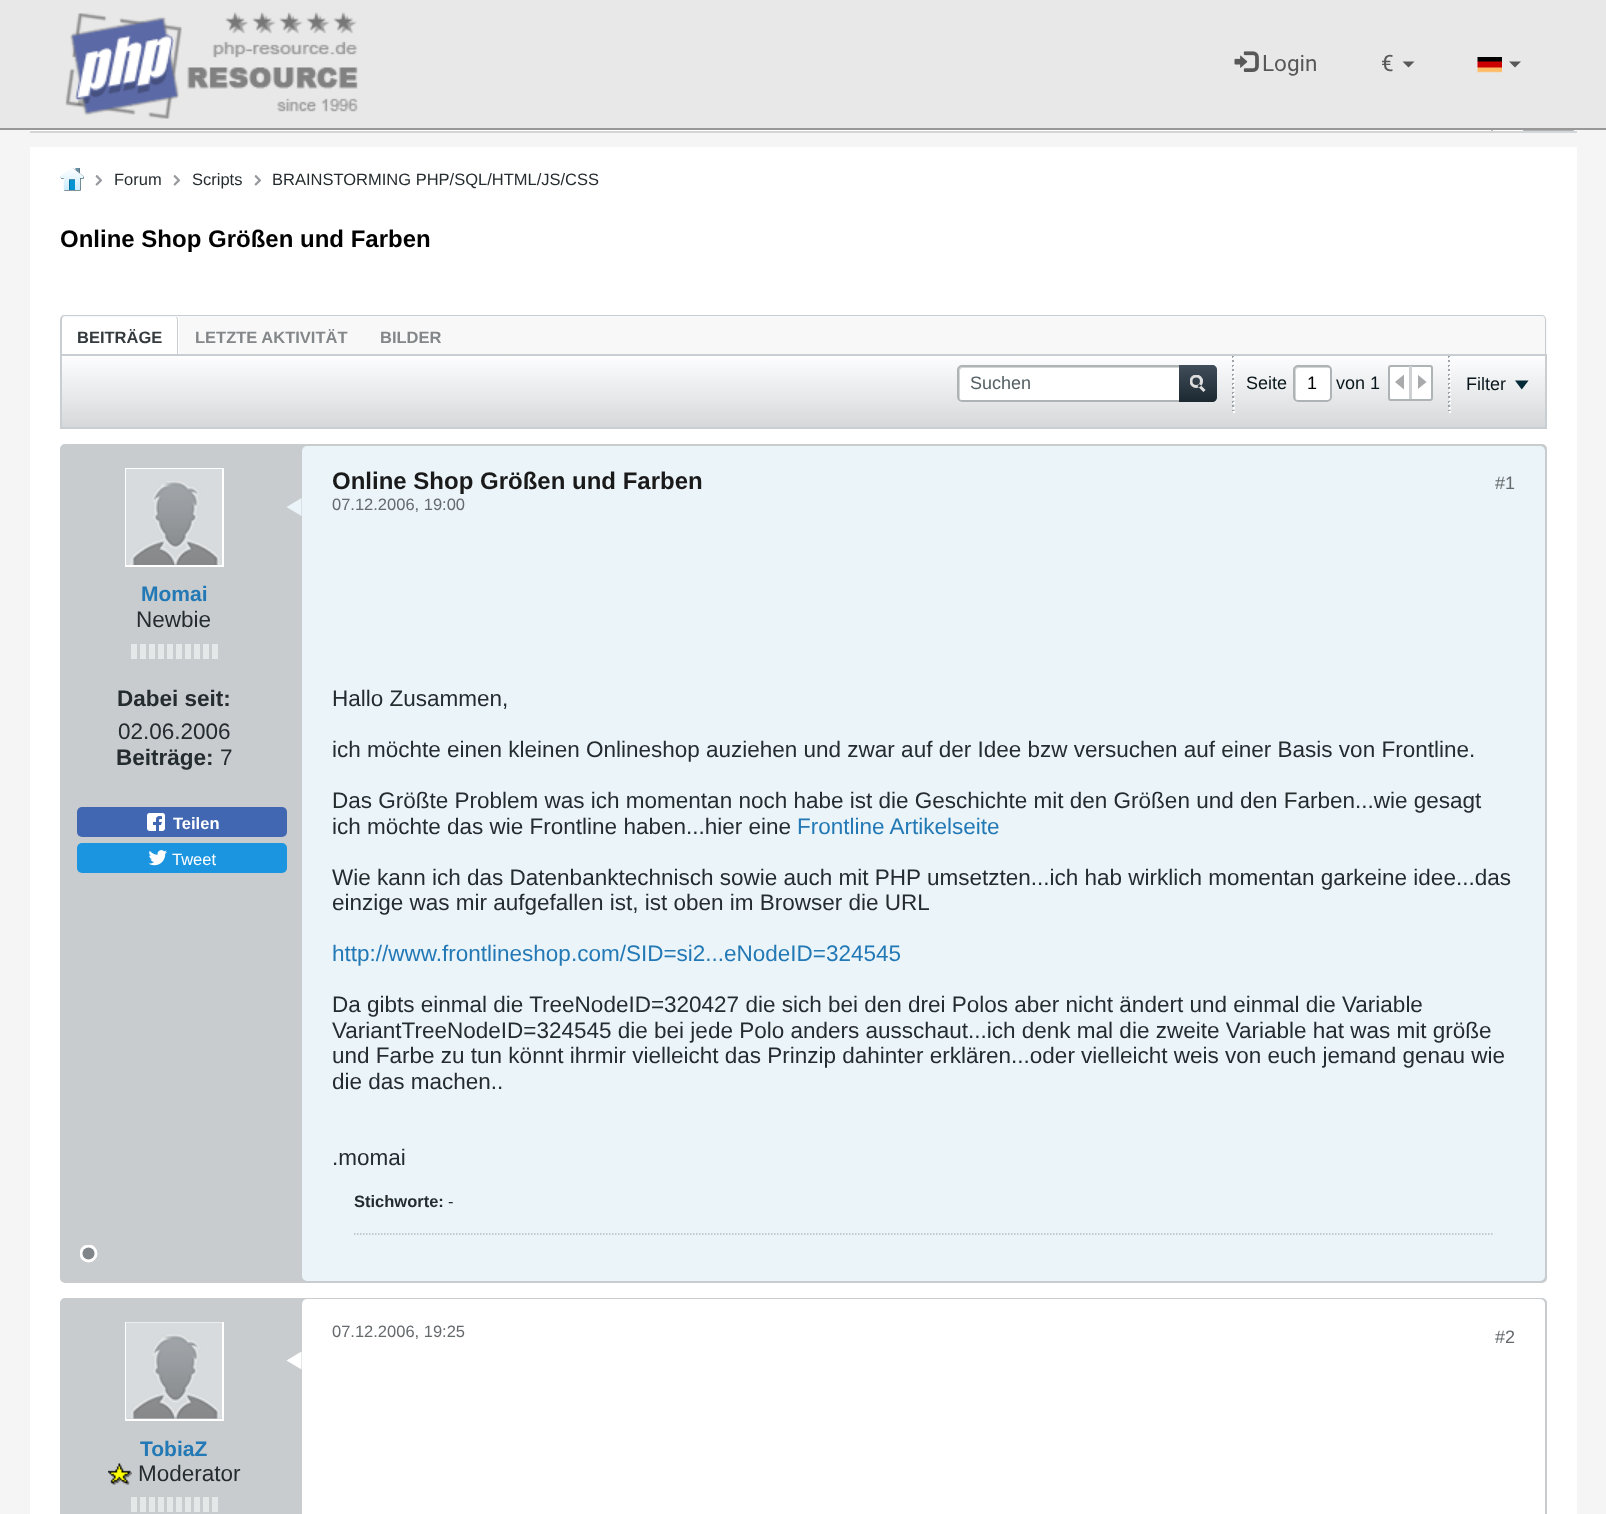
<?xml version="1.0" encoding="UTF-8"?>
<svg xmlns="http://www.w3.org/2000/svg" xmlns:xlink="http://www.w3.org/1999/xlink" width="1606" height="1514">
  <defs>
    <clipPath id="clip1"><path d="M 65 317 h 1477 c 1.5 0 3 1.5 3 3 v 36 h -1483 v -36 c 0 -1.5 1.5 -3 3 -3 z" /></clipPath>
    <linearGradient id="g1" gradientUnits="userSpaceOnUse" x1="803" y1="355" x2="803" y2="428"><stop offset="0" stop-color="#fefeff" /><stop offset="1" stop-color="#d5d8da" /></linearGradient>
    <linearGradient id="g2" gradientUnits="userSpaceOnUse" x1="1198" y1="365" x2="1198" y2="402"><stop offset="0" stop-color="#404d5a" /><stop offset="1" stop-color="#1c2931" /></linearGradient>
  </defs>
  <rect width="100%" height="100%" fill="#f5f5f5" />
  <rect x="30" y="130" width="1547" height="1" fill="#ffffff" />
  <path d="M 1524 88 h 48 c 2 0 4 2 4 4 v 34 c 0 2 -2 4 -4 4 h -48 z" fill="none" stroke="#aeb3b6" stroke-width="2" />
  <rect width="1606" height="128" fill="#e8e8e8" />
  <rect y="128" width="1606" height="2" fill="#989898" />
  <image x="65" y="12" width="293" height="107" xlink:href="image1.png" />
  <image x="1234" y="51" width="25" height="21" xlink:href="image2.png" />
  <path d="M 1402.5 61.5 h 12 l -6 6 z" fill="#585858" />
  <image x="1477" y="57" width="25" height="16" xlink:href="image3.png" />
  <path d="M 1509 61.5 h 12 l -6 6 z" fill="#585858" />
  <rect x="30" y="131" width="1547" height="2" fill="#d3d5d6" />
  <rect x="1491" y="130" width="2" height="1" fill="#bdbdbd" />
  <rect x="30" y="147" width="1547" height="1367" fill="#ffffff" />
  <image x="60" y="168" width="24" height="23" xlink:href="image4.png" />
  <image x="95" y="175" width="7" height="11" xlink:href="image5.png" />
  <image x="173" y="175" width="7" height="11" xlink:href="image5.png" />
  <image x="254" y="175" width="7" height="11" xlink:href="image6.png" />
  <path d="M 65 315 h 1477 c 3 0 5 2 5 5 v 36 h -1487 v -36 c 0 -3 2 -5 5 -5 z" fill="#f8f8f8" />
  <path d="M 64 315 h 1478 c 2 0 4 2 4 5 v 36 h -1486 v -36 c 0 -3 2 -5 4 -5 z m 0 1 h 1478 c 2 0 3 2 3 4 v 36 h -1483 v -36 c 0 -2 1 -4 2 -4 z" fill="#c9ced2" fill-rule="evenodd" />
  <g clip-path="url(#clip1)">
    <path d="M 65 315 h 109 c 3 0 5 2 5 5 v 36 h -119 v -36 c 0 -3 2 -5 5 -5 z" fill="#ffffff" />
  </g>
  <path d="M 177 356 h 1 v -36 c 0 -1 -0.5 -2 -1 -3 h -1 c 0.5 1 1 2 1 3 z" fill="#c9ced2" />
  <rect x="62" y="358" width="1483" height="69" fill="url(#g1)" />
  <rect x="61" y="355" width="1485" height="73" fill="none" stroke="#c9ced2" stroke-width="2" />
  <rect x="957" y="365" width="260" height="37" rx="5" fill="#ffffff" />
  <path d="M 963 368 h 252 c 0 -1 -2 -2 -3 -2 h -250 c -2 0 -3 1 -3 3 v 29 c 0 1 0 2 1 2 v -25 c 0 -3 -1 -7 3 -7 z" fill="#d5d5d5" />
  <rect x="958" y="366" width="258" height="35" rx="4" fill="none" stroke="#aeb3b6" stroke-width="2" />
  <path d="M 1179 365 h 33 c 3 0 5 2 5 5 v 27 c 0 3 -2 5 -5 5 h -33 z" fill="url(#g2)" />
  <image x="1190" y="375" width="16" height="17" xlink:href="image7.png" />
  <image x="1232" y="356" width="2" height="55" xlink:href="image8.png" />
  <image x="1233" y="357" width="2" height="56" xlink:href="image9.png" />
  <rect x="1293" y="365" width="39" height="37" rx="5" fill="#ffffff" />
  <path d="M 1299 368 h 30 l 2 0.5 c -0.5 -1.5 -1.5 -2.5 -3 -2.5 h -30 c -1.5 0 -3 1.5 -3 3 v 29 c 0 1 0.5 2 1 2.5 v -25.5 c 0 -3.5 -1 -7 3 -7 z" fill="#d5d5d5" />
  <rect x="1294" y="366" width="37" height="35" rx="4" fill="none" stroke="#aeb3b6" stroke-width="2" />
  <rect x="1389" y="366" width="43" height="34" rx="2" fill="#ffffff" stroke="#aeb3b6" stroke-width="2" />
  <rect x="1409" y="366" width="3" height="33" fill="#cdd1d4" />
  <image x="1395" y="375" width="9" height="15" xlink:href="image10.png" />
  <image x="1418" y="375" width="9" height="14" xlink:href="image11.png" />
  <image x="1448" y="356" width="2" height="55" xlink:href="image8.png" />
  <image x="1449" y="357" width="2" height="56" xlink:href="image9.png" />
  <image x="1515" y="380" width="14" height="10" xlink:href="image12.png" />
  <rect x="61" y="445" width="1485" height="837" rx="4" fill="#c8ccce" stroke="#c8ccce" stroke-width="2" />
  <rect x="126" y="469" width="97" height="97" fill="none" stroke="#ffffff" stroke-width="2" />
  <image x="126" y="469" width="96" height="96" xlink:href="image13.png" />
  <rect x="131" y="644" width="6" height="15" fill="#e5e8e9" />
  <rect x="140" y="644" width="6" height="15" fill="#e5e8e9" />
  <rect x="149" y="644" width="6" height="15" fill="#e5e8e9" />
  <rect x="158" y="644" width="6" height="15" fill="#e5e8e9" />
  <rect x="167" y="644" width="6" height="15" fill="#e5e8e9" />
  <rect x="176" y="644" width="6" height="15" fill="#e5e8e9" />
  <rect x="185" y="644" width="6" height="15" fill="#e5e8e9" />
  <rect x="194" y="644" width="6" height="15" fill="#e5e8e9" />
  <rect x="203" y="644" width="6" height="15" fill="#e5e8e9" />
  <rect x="212" y="644" width="6" height="15" fill="#e5e8e9" />
  <image x="80" y="1245" width="18" height="18" xlink:href="image14.png" />
  <rect x="77" y="807" width="210" height="30" rx="5" fill="#4267b2" />
  <image x="147" y="813" width="18" height="18" xlink:href="image15.png" />
  <rect x="77" y="843" width="210" height="30" rx="5" fill="#1b95e0" />
  <image x="148" y="850" width="19" height="16" xlink:href="image16.png" />
  <rect x="302" y="446" width="1243" height="835" rx="5" fill="#ebf4f9" />
  <path d="M 301.5 498 v 18 l -15 -9 z" fill="#ebf4f9" />
  <path d="M 354 1234 h 1138.5" fill="none" stroke="#b7bcbe" stroke-width="1.5" stroke-dasharray="1.5 1.5" />
  <rect x="61" y="1299" width="1485" height="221" rx="4" fill="#c8ccce" stroke="#c8ccce" stroke-width="2" />
  <rect x="302" y="1299" width="1243" height="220" rx="5" fill="#ffffff" />
  <path d="M 301.5 1351.5 v 18 l -15 -9 z" fill="#ffffff" />
  <rect x="126" y="1323" width="97" height="97" fill="none" stroke="#ffffff" stroke-width="2" />
  <image x="126" y="1322" width="96" height="97" xlink:href="image17.png" />
  <image x="108" y="1463" width="24" height="22" xlink:href="image18.png" />
  <rect x="131" y="1497" width="6" height="15" fill="#e5e8e9" />
  <rect x="140" y="1497" width="6" height="15" fill="#e5e8e9" />
  <rect x="149" y="1497" width="6" height="15" fill="#e5e8e9" />
  <rect x="158" y="1497" width="6" height="15" fill="#e5e8e9" />
  <rect x="167" y="1497" width="6" height="15" fill="#e5e8e9" />
  <rect x="176" y="1497" width="6" height="15" fill="#e5e8e9" />
  <rect x="185" y="1497" width="6" height="15" fill="#e5e8e9" />
  <rect x="194" y="1497" width="6" height="15" fill="#e5e8e9" />
  <rect x="203" y="1497" width="6" height="15" fill="#e5e8e9" />
  <rect x="212" y="1497" width="6" height="15" fill="#e5e8e9" />
  <text x="1262" y="71" style="font-family: Roboto; font-size: 22.5px; fill: #585858">Login</text>
  <text x="1381" y="71" style="font-family: Roboto; font-size: 22.5px; fill: #585858">€</text>
  <text x="114" y="185" style="font-family: Liberation Sans; font-size: 16.5px; fill: #252c2f">Forum</text>
  <text x="192" y="185" style="font-family: Liberation Sans; font-size: 16.5px; fill: #252c2f">Scripts</text>
  <text x="272" y="185" style="font-family: Liberation Sans; font-size: 16.5px; fill: #252c2f">BRAINSTORMING PHP/SQL/HTML/JS/CSS</text>
  <text x="60" y="247" style="font-family: Liberation Sans; font-size: 24px; font-weight: bold; fill: #000000">Online Shop Größen und Farben</text>
  <text x="77" y="343" style="font-family: Liberation Sans; font-size: 16.5px; font-weight: bold; fill: #343a3d">BEITRÄGE</text>
  <text x="195" y="343" style="font-family: Liberation Sans; font-size: 16.5px; font-weight: bold; fill: #838789">LETZTE AKTIVITÄT</text>
  <text x="380" y="343" style="font-family: Liberation Sans; font-size: 16.5px; font-weight: bold; fill: #838789">BILDER</text>
  <text x="970" y="389" style="font-family: Liberation Sans; font-size: 18px; fill: #556065">Suchen</text>
  <text x="1246" y="389" style="font-family: Liberation Sans; font-size: 18px; fill: #09161b">Seite</text>
  <text x="1307" y="389" style="font-family: Liberation Sans; font-size: 18px; fill: #000000">1</text>
  <text x="1336" y="389" style="font-family: Liberation Sans; font-size: 18px; fill: #09161b">von 1</text>
  <text x="1466" y="390" style="font-family: Liberation Sans; font-size: 18px; fill: #09161b">Filter</text>
  <text x="141" y="601" style="font-family: Liberation Sans; font-size: 21px; font-weight: bold; fill: #2379b5">Momai</text>
  <text x="136" y="627" style="font-family: Liberation Sans; font-size: 22.5px; fill: #252c2f">Newbie</text>
  <text x="117" y="706" style="font-family: Liberation Sans; font-size: 22.5px; font-weight: bold; fill: #252c2f">Dabei seit:</text>
  <text x="118" y="739" style="font-family: Liberation Sans; font-size: 22.5px; fill: #252c2f">02.06.2006</text>
  <text x="116" y="765" style="font-family: Liberation Sans; font-size: 22.5px; font-weight: bold; fill: #252c2f">Beiträge:</text>
  <text x="220" y="765" style="font-family: Liberation Sans; font-size: 22.5px; fill: #252c2f">7</text>
  <text x="173" y="829" style="font-family: Liberation Sans; font-size: 16.5px; font-weight: bold; fill: #ffffff">Teilen</text>
  <text x="172" y="865" style="font-family: Liberation Sans; font-size: 16.5px; fill: #ffffff">Tweet</text>
  <text x="332" y="489" style="font-family: Liberation Sans; font-size: 24px; font-weight: bold; fill: #1a1a1a">Online Shop Größen und Farben</text>
  <text x="332" y="510" style="font-family: Liberation Sans; font-size: 16.5px; fill: #656a6d">07.12.2006, 19:00</text>
  <text x="1495" y="489" style="font-family: Liberation Sans; font-size: 18px; fill: #656a6d">#1</text>
  <text x="332" y="706" style="font-family: Liberation Sans; font-size: 22.5px; fill: #252c2f">Hallo Zusammen,</text>
  <text x="332" y="757" style="font-family: Liberation Sans; font-size: 22.5px; fill: #252c2f">ich möchte einen kleinen Onlineshop auziehen und zwar auf der Idee bzw versuchen auf einer Basis von Frontline.</text>
  <text x="332" y="808" style="font-family: Liberation Sans; font-size: 22.5px; fill: #252c2f">Das Größte Problem was ich momentan noch habe ist die Geschichte mit den Größen und den Farben...wie gesagt</text>
  <text x="332" y="834" style="font-family: Liberation Sans; font-size: 22.5px; fill: #252c2f">ich möchte das wie Frontline haben...hier eine</text>
  <text x="797" y="834" style="font-family: Liberation Sans; font-size: 22.5px; fill: #2379b5">Frontline Artikelseite</text>
  <text x="332" y="885" style="font-family: Liberation Sans; font-size: 22.5px; fill: #252c2f">Wie kann ich das Datenbanktechnisch sowie auch mit PHP umsetzten...ich hab wirklich momentan garkeine idee...das</text>
  <text x="332" y="910" style="font-family: Liberation Sans; font-size: 22.5px; fill: #252c2f">einzige was mir aufgefallen ist, ist oben im Browser die URL</text>
  <text x="332" y="961" style="font-family: Liberation Sans; font-size: 22.5px; fill: #2379b5">http://www.frontlineshop.com/SID=si2...eNodeID=324545</text>
  <text x="332" y="1012" style="font-family: Liberation Sans; font-size: 22.5px; fill: #252c2f">Da gibts einmal die TreeNodeID=320427 die sich bei den drei Polos aber nicht ändert und einmal die Variable</text>
  <text x="332" y="1038" style="font-family: Liberation Sans; font-size: 22.5px; fill: #252c2f">VariantTreeNodeID=324545 die bei jede Polo anders ausschaut...ich denk mal die zweite Variable hat was mit größe</text>
  <text x="332" y="1063" style="font-family: Liberation Sans; font-size: 22.5px; fill: #252c2f">und Farbe zu tun könnt ihrmir vielleicht das Prinzip dahinter erklären...oder vielleicht weis von euch jemand genau wie</text>
  <text x="332" y="1089" style="font-family: Liberation Sans; font-size: 22.5px; fill: #252c2f">die das machen..</text>
  <text x="332" y="1165" style="font-family: Liberation Sans; font-size: 22.5px; fill: #252c2f">.momai</text>
  <text x="354" y="1207" style="font-family: Liberation Sans; font-size: 16.5px; font-weight: bold; fill: #252c2f">Stichworte:</text>
  <text x="448" y="1207" style="font-family: Liberation Sans; font-size: 16.5px; fill: #252c2f">-</text>
  <text x="332" y="1337" style="font-family: Liberation Sans; font-size: 16.5px; fill: #656a6d">07.12.2006, 19:25</text>
  <text x="1495" y="1343" style="font-family: Liberation Sans; font-size: 18px; fill: #656a6d">#2</text>
  <text x="140" y="1456" style="font-family: Liberation Sans; font-size: 21px; font-weight: bold; fill: #2379b5">TobiaZ</text>
  <text x="138" y="1481" style="font-family: Liberation Sans; font-size: 22.5px; fill: #252c2f">Moderator</text>
</svg>
